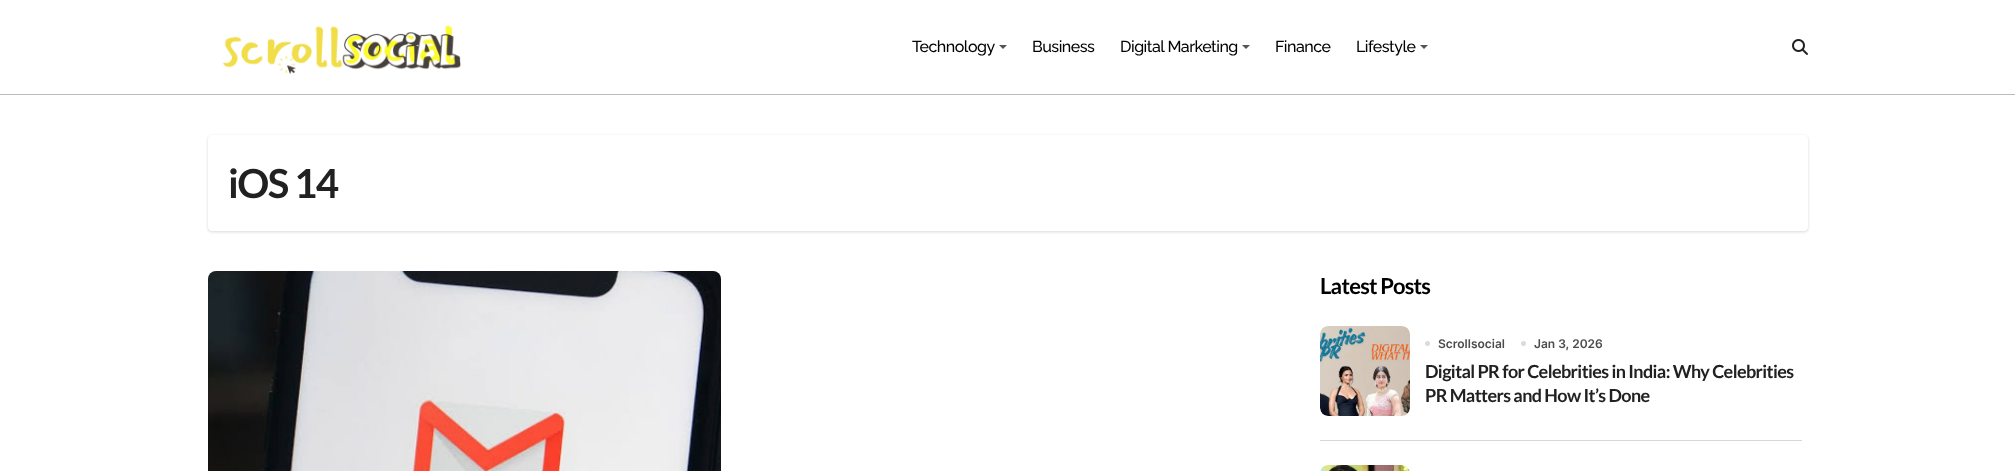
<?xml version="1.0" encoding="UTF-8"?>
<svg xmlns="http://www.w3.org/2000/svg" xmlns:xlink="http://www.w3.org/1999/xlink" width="2015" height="471">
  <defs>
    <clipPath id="clip1"><path d="M 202 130 h 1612 v 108 h -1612 z m 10 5 h 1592 c 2 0 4 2 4 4 v 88 c 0 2 -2 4 -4 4 h -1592 c -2 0 -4 -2 -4 -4 v -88 c 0 -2 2 -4 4 -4 z" clip-rule="evenodd" /></clipPath>
  </defs>
  <rect width="100%" height="100%" fill="#ffffff" />
  <rect y="94" width="2015" height="1" fill="#bbbbbb" />
  <image x="222" y="25" width="239" height="49" xlink:href="image1.png" />
  <path d="M 999 45 h 8 l -4 4 z" fill="#555555" />
  <path d="M 1242 45 h 8 l -4 4 z" fill="#555555" />
  <path d="M 1420 45 h 8 l -4 4 z" fill="#555555" />
  <image x="1792" y="39" width="16" height="16" xlink:href="image2.png" />
  <g clip-path="url(#clip1)">
    <rect x="208" y="136" width="1600" height="96" rx="4" fill="#000000" fill-opacity="0.15" filter="blur(1.5px)" />
  </g>
  <image x="208" y="271" width="513" height="200" xlink:href="image3.png" />
  <rect x="1320" y="440" width="482" height="1" fill="#d7d7d7" />
  <image x="1320" y="326" width="90" height="90" xlink:href="image4.png" />
  <circle cx="1427.5" cy="343.5" r="2.5" fill="#dbdbdb" />
  <circle cx="1523.5" cy="343.5" r="2.5" fill="#dbdbdb" />
  <image x="1320" y="465" width="90" height="6" xlink:href="image5.png" />
  <text x="912" y="52" style="font-family: Raleway; font-size: 16px; font-weight: 500; letter-spacing: -0.5px; fill: #000000">Technology</text>
  <text x="1032" y="52" style="font-family: Raleway; font-size: 16px; font-weight: 500; letter-spacing: -0.5px; fill: #000000">Business</text>
  <text x="1120" y="52" style="font-family: Raleway; font-size: 16px; font-weight: 500; letter-spacing: -0.5px; fill: #000000">Digital Marketing</text>
  <text x="1275" y="52" style="font-family: Raleway; font-size: 16px; font-weight: 500; letter-spacing: -0.5px; fill: #000000">Finance</text>
  <text x="1356" y="52" style="font-family: Raleway; font-size: 16px; font-weight: 500; letter-spacing: -0.5px; fill: #000000">Lifestyle</text>
  <text x="228" y="198" style="font-family: Lato; font-size: 40px; font-weight: bold; letter-spacing: -1.5px; fill: #212121">iOS 14</text>
  <text x="1320" y="294" style="font-family: Lato; font-size: 22px; font-weight: bold; letter-spacing: -0.75px; fill: #000000">Latest Posts</text>
  <text x="1438" y="348" style="font-family: Inter; font-size: 12px; font-weight: 600; fill: #4c4c4c">Scrollsocial</text>
  <text x="1534" y="348" style="font-family: Inter; font-size: 12px; font-weight: 600; fill: #4c4c4c">Jan 3, 2026</text>
  <text x="1425" y="378" style="font-family: Lato; font-size: 18px; font-weight: bold; letter-spacing: -0.6px; fill: #212121">Digital PR for Celebrities in India: Why Celebrities</text>
  <text x="1425" y="402" style="font-family: Lato; font-size: 18px; font-weight: bold; letter-spacing: -0.6px; fill: #212121">PR Matters and How It’s Done</text>
</svg>
